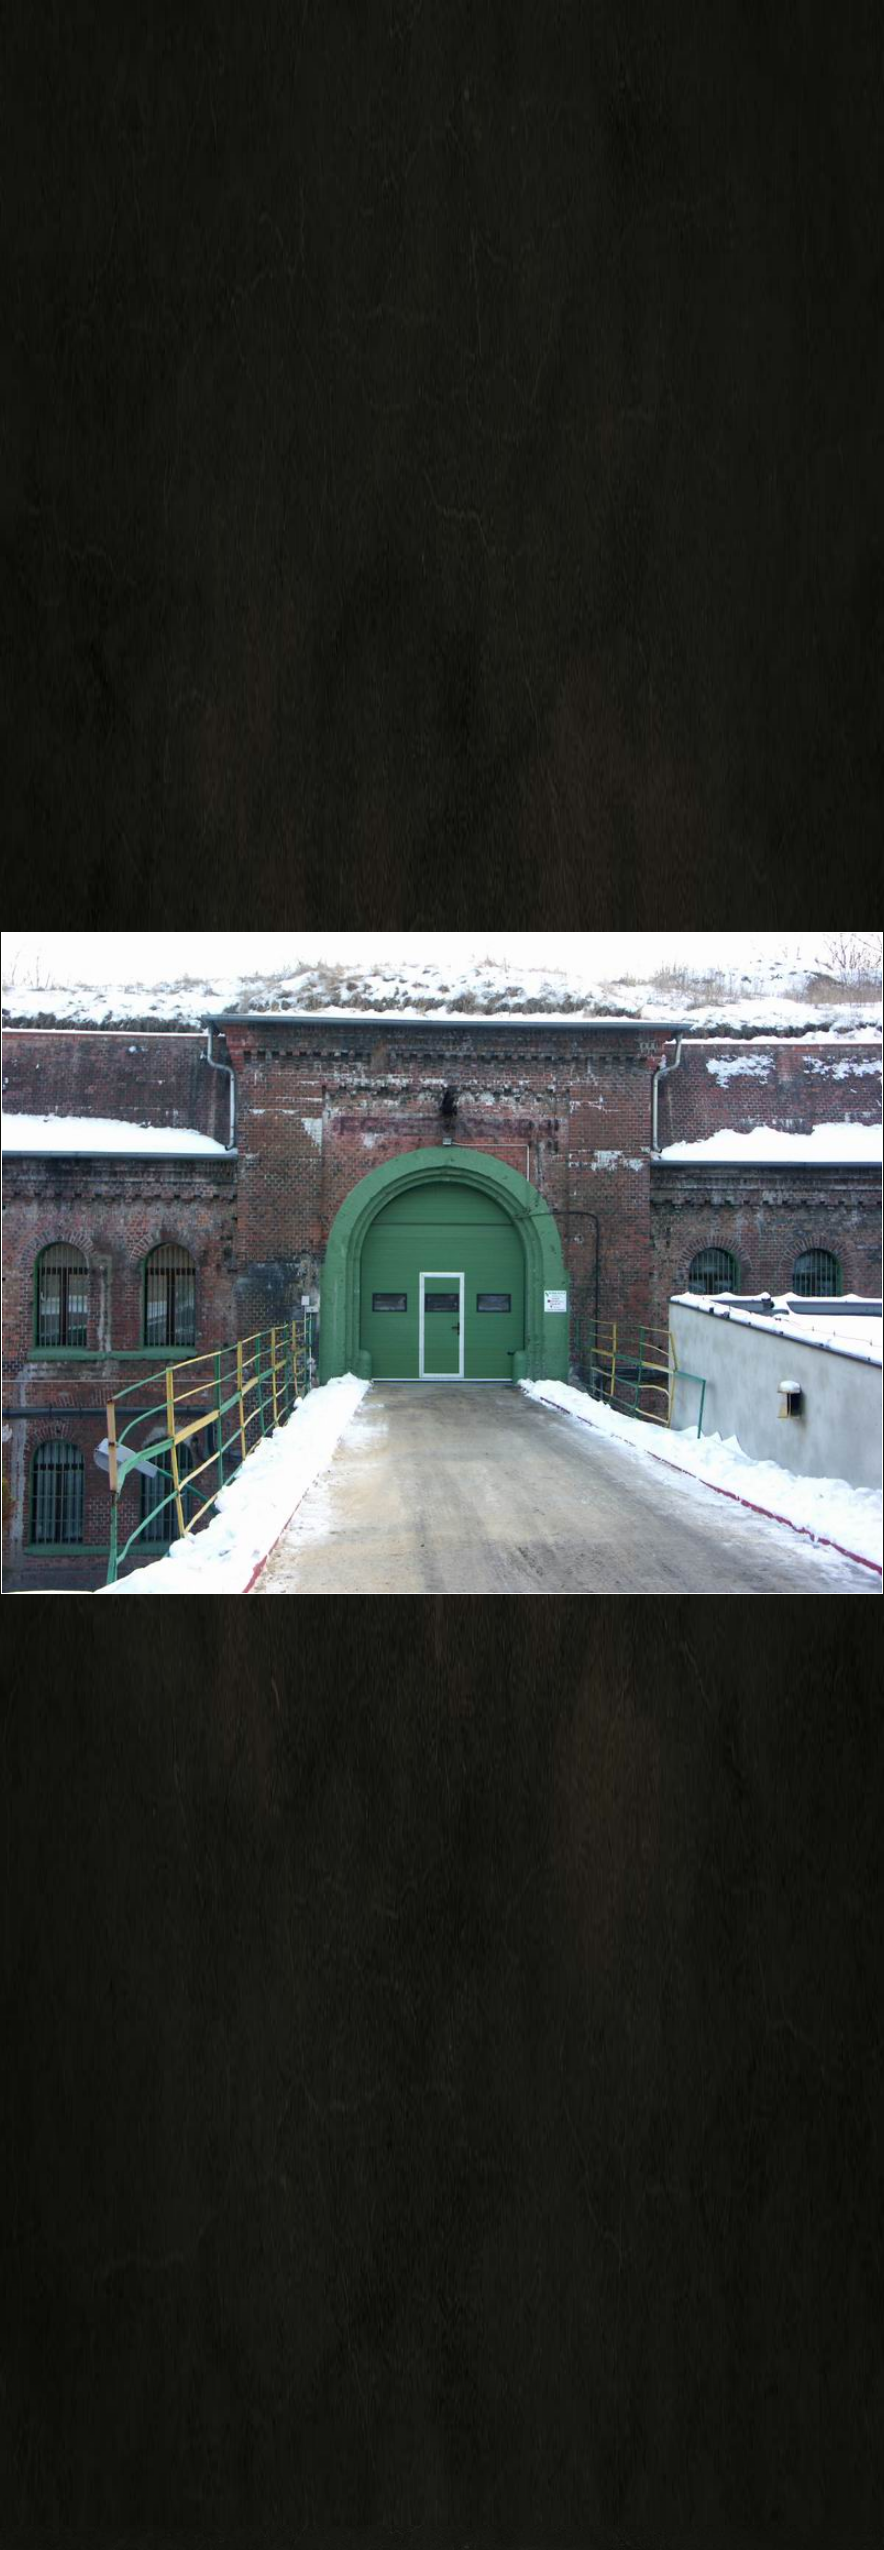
<?xml version="1.0" encoding="UTF-8"?>
<svg xmlns="http://www.w3.org/2000/svg" xmlns:xlink="http://www.w3.org/1999/xlink" width="884" height="2550">
  <rect width="100%" height="100%" fill="#ffffff" />
  <image x="0" y="2524" width="884" height="1" xlink:href="image3.png" />
  <image x="0" y="0" width="884" height="2525" xlink:href="image1.png" />
  <rect x="1" y="932" width="882" height="662" fill="#ffffff" />
  <image x="2" y="933" width="880" height="660" xlink:href="image2.png" />
  <image x="0" y="2525" width="884" height="25" xlink:href="image4.png" />
</svg>
